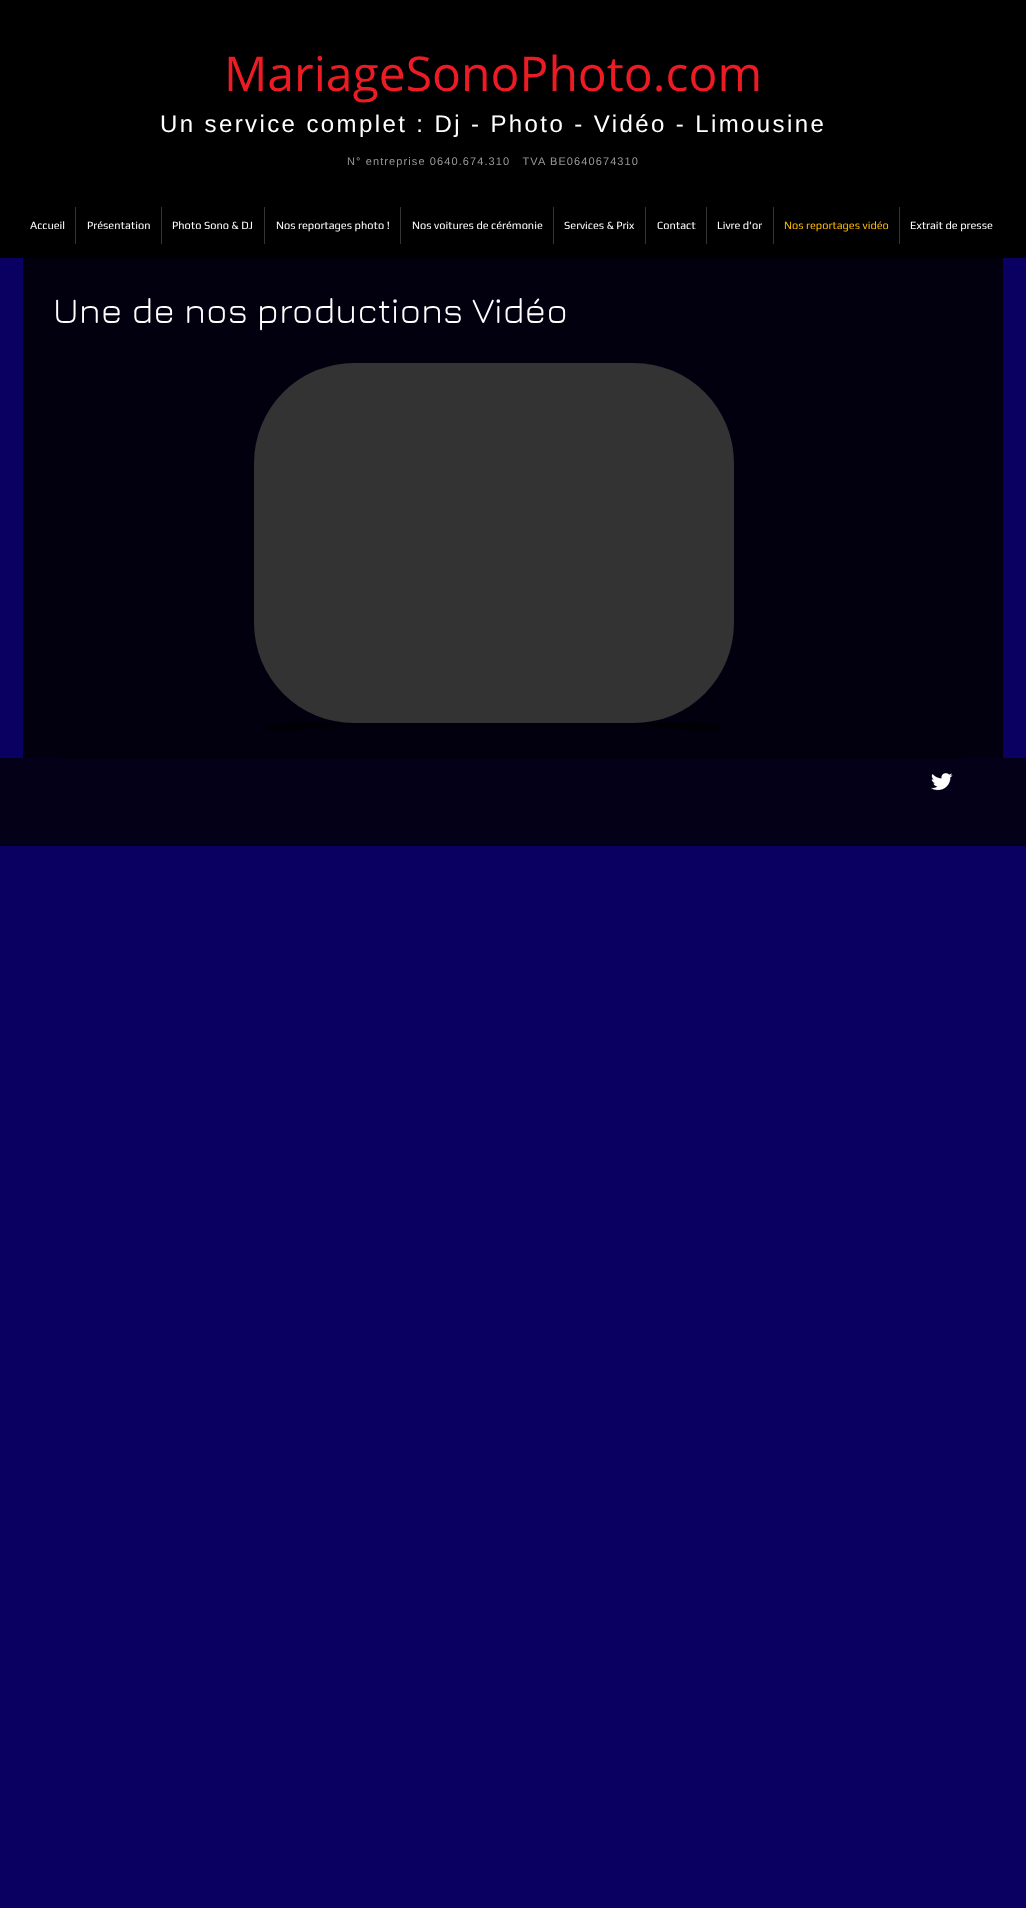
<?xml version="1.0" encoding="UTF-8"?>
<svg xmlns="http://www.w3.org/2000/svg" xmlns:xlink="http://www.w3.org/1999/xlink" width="1026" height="1908">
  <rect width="100%" height="100%" fill="#0a0061" />
  <rect width="1026" height="258" fill="#000000" />
  <rect x="75" y="207" width="1" height="37" fill="#333333" />
  <rect x="161" y="207" width="1" height="37" fill="#333333" />
  <rect x="264" y="207" width="1" height="37" fill="#333333" />
  <rect x="400" y="207" width="1" height="37" fill="#333333" />
  <rect x="553" y="207" width="1" height="37" fill="#333333" />
  <rect x="645" y="207" width="1" height="37" fill="#333333" />
  <rect x="706" y="207" width="1" height="37" fill="#333333" />
  <rect x="773" y="207" width="1" height="37" fill="#333333" />
  <rect x="899" y="207" width="1" height="37" fill="#333333" />
  <rect x="23" y="258" width="980" height="500" fill="#02000e" />
  <rect x="254" y="363" width="480" height="360" rx="100" fill="#333333" />
  <image x="266" y="723" width="91" height="8" xlink:href="image1.png" />
  <image x="631" y="723" width="91" height="8" xlink:href="image2.png" />
  <image x="61" y="756" width="62" height="2" xlink:href="image3.png" />
  <image x="123" y="756" width="780" height="2" xlink:href="image4.png" />
  <image x="903" y="756" width="62" height="2" xlink:href="image5.png" />
  <rect y="758" width="1026" height="88" fill="#030018" />
  <image x="931" y="773" width="22" height="18" xlink:href="image6.png" />
  <text x="224" y="91" style="font-family: Open Sans; font-size: 48px; fill: #ed1c24">MariageSonoPhoto.com</text>
  <text x="160" y="132" style="font-family: Liberation Sans; font-size: 24px; letter-spacing: 2.4px; fill: #ffffff">Un service complet : Dj - Photo - Vidéo - Limousine</text>
  <text x="347" y="165" style="font-family: Liberation Sans; font-size: 11px; letter-spacing: 1.1px; fill: #999999" xml:space="preserve">N° entreprise 0640.674.310   TVA BE0640674310</text>
  <text x="30" y="229" style="font-family: Play; font-size: 11px; fill: #ffffff">Accueil</text>
  <text x="87" y="229" style="font-family: Play; font-size: 11px; fill: #ffffff">Présentation</text>
  <text x="172" y="229" style="font-family: Play; font-size: 11px; fill: #ffffff">Photo Sono &amp; DJ</text>
  <text x="276" y="229" style="font-family: Play; font-size: 11px; fill: #ffffff">Nos reportages photo !</text>
  <text x="412" y="229" style="font-family: Play; font-size: 11px; fill: #ffffff">Nos voitures de cérémonie</text>
  <text x="564" y="229" style="font-family: Play; font-size: 11px; fill: #ffffff">Services &amp; Prix</text>
  <text x="657" y="229" style="font-family: Play; font-size: 11px; fill: #ffffff">Contact</text>
  <text x="717" y="229" style="font-family: Play; font-size: 11px; fill: #ffffff">Livre d'or</text>
  <text x="784" y="229" style="font-family: Play; font-size: 11px; fill: #ffbb00">Nos reportages vidéo</text>
  <text x="910" y="229" style="font-family: Play; font-size: 11px; fill: #ffffff">Extrait de presse</text>
  <text x="53" y="323" style="font-family: Jura; font-size: 36px; fill: #ffffff">Une de nos productions Vidéo</text>
</svg>
